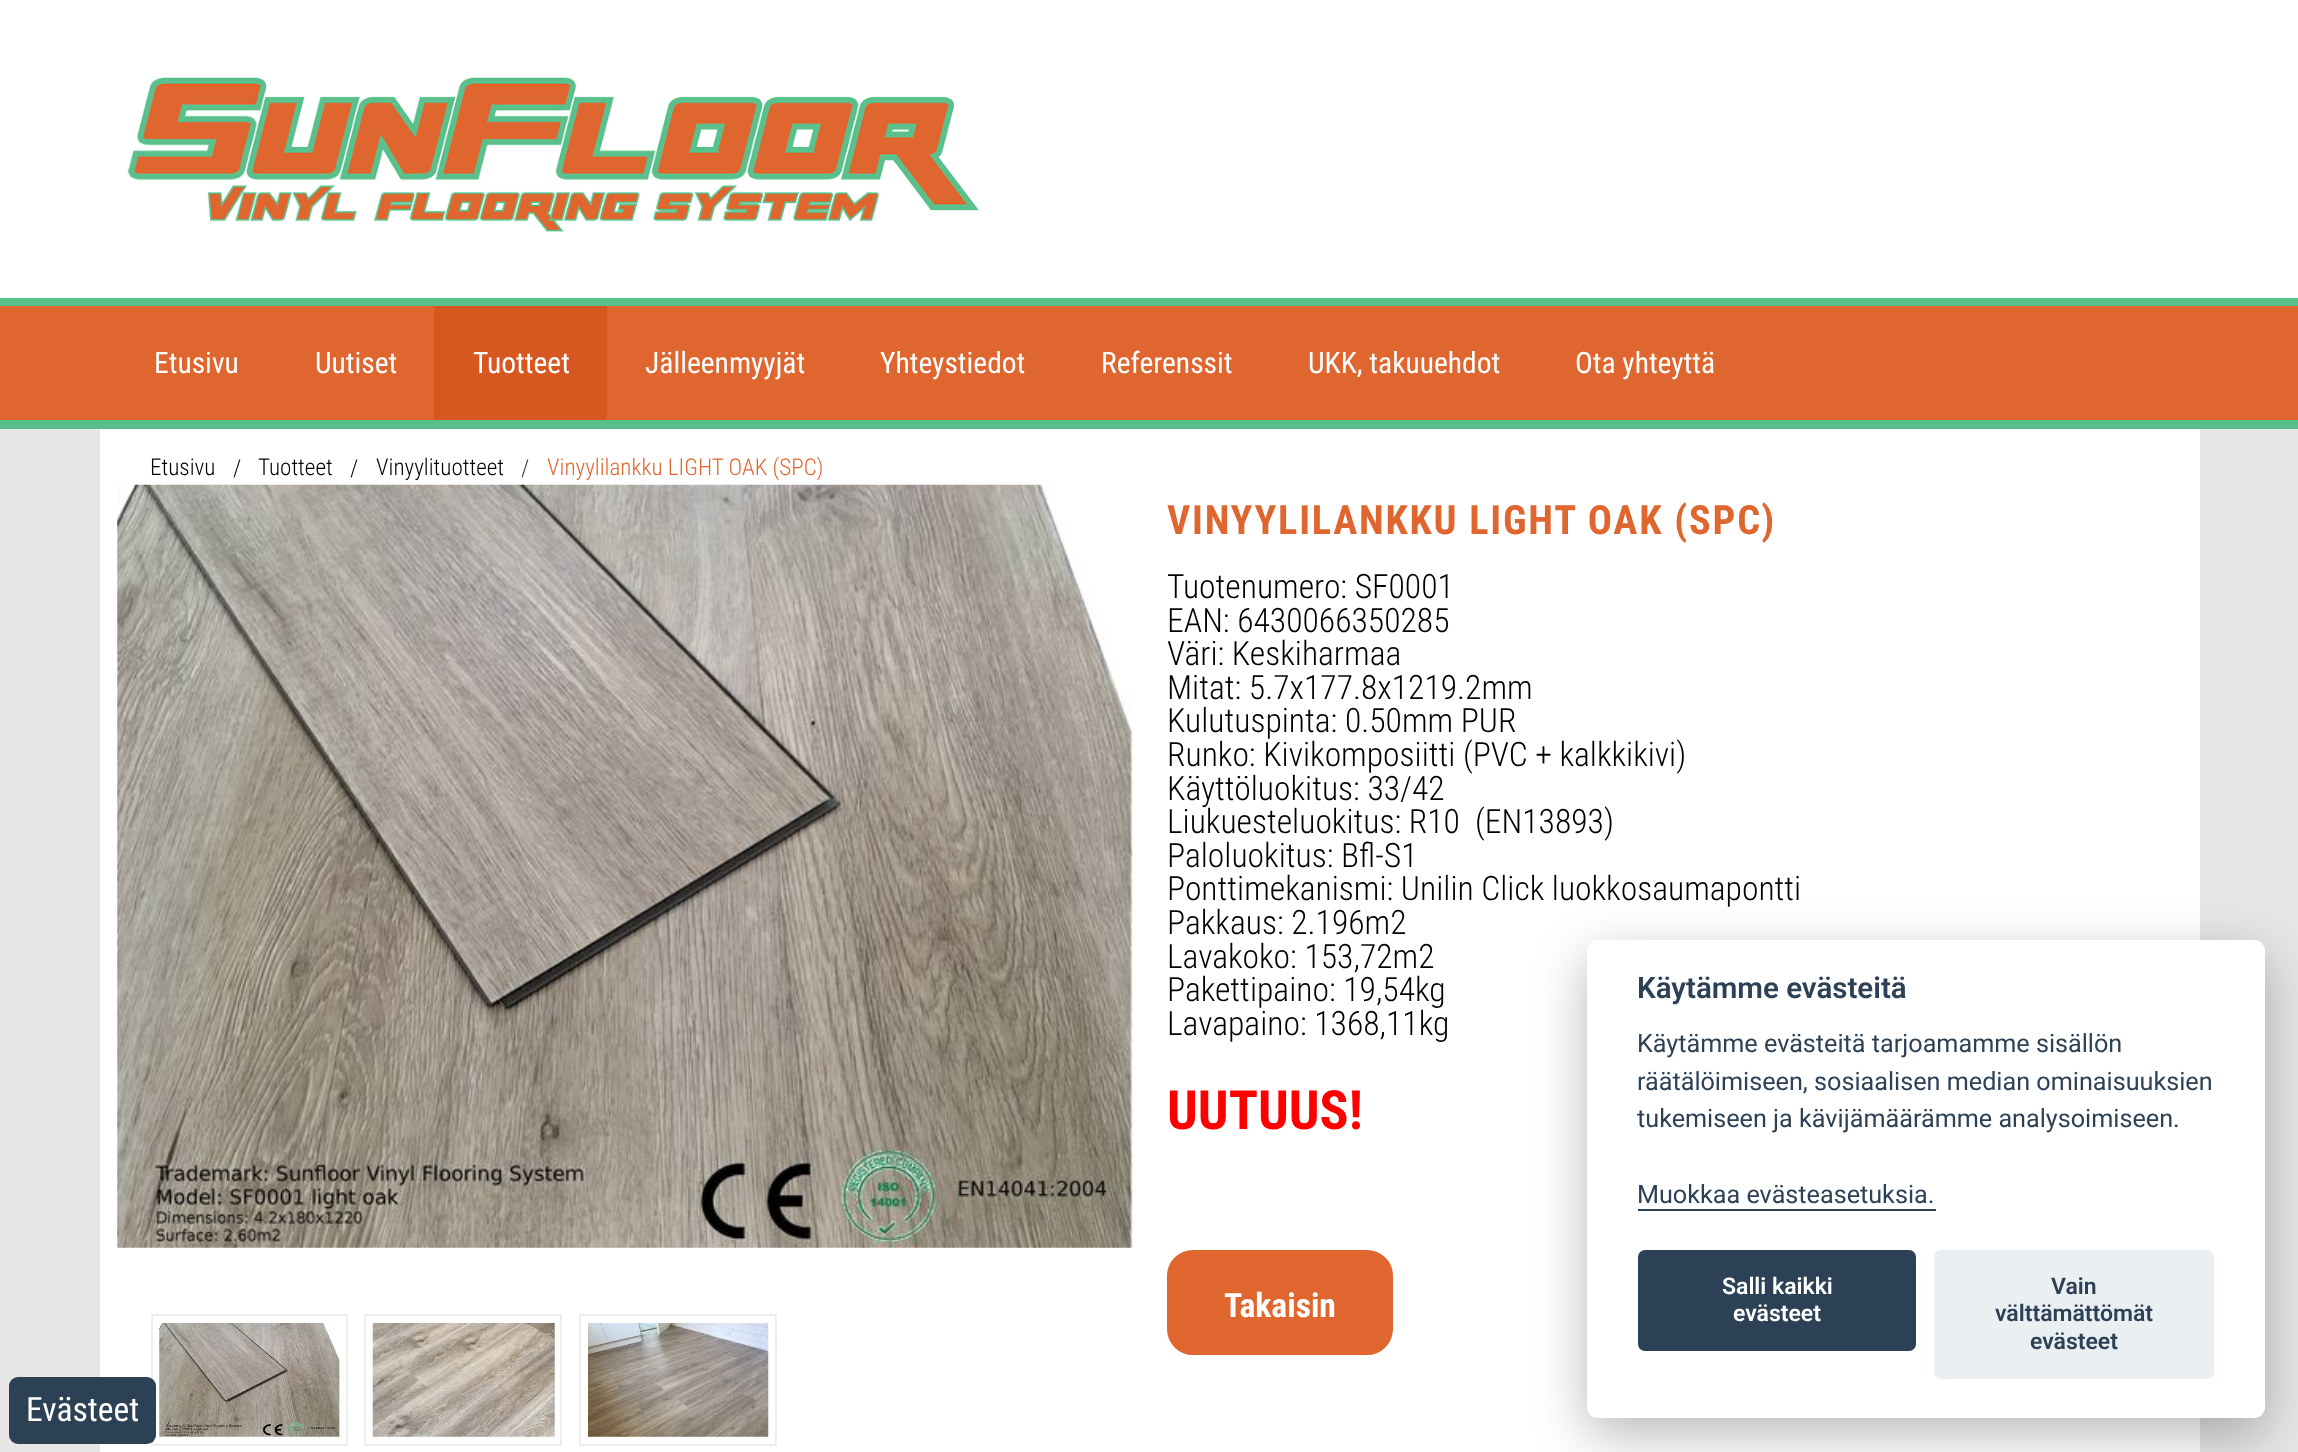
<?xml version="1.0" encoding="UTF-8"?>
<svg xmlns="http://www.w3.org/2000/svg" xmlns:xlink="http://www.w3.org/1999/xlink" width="2298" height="1452">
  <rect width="100%" height="100%" fill="#e6e6e6" />
  <rect width="2298" height="298" fill="#ffffff" />
  <image x="127" y="77" width="853" height="155" xlink:href="image1.png" />
  <rect y="306" width="2298" height="114" fill="#e06630" />
  <rect y="298" width="2298" height="8" fill="#58bf8a" />
  <rect y="420" width="2298" height="9" fill="#58bf8a" />
  <rect x="434" y="306" width="173" height="114" fill="#d65820" />
  <rect x="100" y="429" width="2100" height="1023" fill="#ffffff" />
  <image x="117" y="484" width="1016" height="764" xlink:href="image2.png" />
  <rect x="152" y="1315" width="195" height="130" fill="none" stroke="#eeeeee" stroke-width="2" />
  <image x="159" y="1323" width="181" height="114" xlink:href="image3.png" />
  <rect x="365" y="1315" width="196" height="130" fill="none" stroke="#eeeeee" stroke-width="2" />
  <image x="372" y="1323" width="183" height="114" xlink:href="image4.png" />
  <rect x="580" y="1315" width="196" height="130" fill="none" stroke="#eeeeee" stroke-width="2" />
  <image x="588" y="1323" width="181" height="114" xlink:href="image5.png" />
  <rect x="1170.5" y="1253.5" width="219" height="98" rx="22.5" fill="#e06630" stroke="#e06630" stroke-width="7" />
  <rect x="1587" y="957" width="678" height="478" rx="11" fill="#020203" fill-opacity="0.28" filter="blur(26px)" />
  <rect x="1587" y="940" width="678" height="478" rx="11" fill="#ffffff" />
  <rect x="1638" y="1209" width="298" height="2" fill="#2d4156" />
  <rect x="1638" y="1250" width="278" height="101" rx="7" fill="#2d4156" />
  <rect x="1934" y="1250" width="280" height="129" rx="7" fill="#eaeff2" />
  <rect x="9" y="1377" width="147" height="67" rx="9" fill="#2d4155" />
  <text x="154" y="373" style="font-family: Roboto Condensed; font-size: 29.5px; fill: #ffffff">Etusivu</text>
  <text x="315" y="373" style="font-family: Roboto Condensed; font-size: 29.5px; fill: #ffffff">Uutiset</text>
  <text x="473" y="373" style="font-family: Roboto Condensed; font-size: 29.5px; fill: #ffffff">Tuotteet</text>
  <text x="645" y="373" style="font-family: Roboto Condensed; font-size: 29.5px; fill: #ffffff">Jälleenmyyjät</text>
  <text x="880" y="373" style="font-family: Roboto Condensed; font-size: 29.5px; fill: #ffffff">Yhteystiedot</text>
  <text x="1101" y="373" style="font-family: Roboto Condensed; font-size: 29.5px; fill: #ffffff">Referenssit</text>
  <text x="1308" y="373" style="font-family: Roboto Condensed; font-size: 29.5px; fill: #ffffff">UKK, takuuehdot</text>
  <text x="1575" y="373" style="font-family: Roboto Condensed; font-size: 29.5px; fill: #ffffff">Ota yhteyttä</text>
  <text x="150" y="475" style="font-family: Roboto Condensed; font-size: 23.1px; font-weight: 300; fill: #000000">Etusivu</text>
  <text x="233" y="476" style="font-family: Roboto Condensed; font-size: 23.1px; font-weight: 300; fill: #000000">/</text>
  <text x="258" y="475" style="font-family: Roboto Condensed; font-size: 23.1px; font-weight: 300; fill: #000000">Tuotteet</text>
  <text x="350" y="476" style="font-family: Roboto Condensed; font-size: 23.1px; font-weight: 300; fill: #000000">/</text>
  <text x="376" y="475" style="font-family: Roboto Condensed; font-size: 23.1px; font-weight: 300; fill: #000000">Vinyylituotteet</text>
  <text x="521" y="476" style="font-family: Roboto Condensed; font-size: 23.1px; font-weight: 300; fill: #333333">/</text>
  <text x="547" y="475" style="font-family: Roboto Condensed; font-size: 23.1px; font-weight: 300; fill: #e06630">Vinyylilankku LIGHT OAK (SPC)</text>
  <text x="1167" y="534" style="font-family: Roboto Condensed; font-size: 40.3px; font-weight: bold; letter-spacing: 1.75px; fill: #e06630">VINYYLILANKKU LIGHT OAK (SPC)</text>
  <text x="1167" y="598" style="font-family: Roboto Condensed; font-size: 33.6px; font-weight: 300; fill: #000000">Tuotenumero: SF0001</text>
  <text x="1167" y="632" style="font-family: Roboto Condensed; font-size: 33.6px; font-weight: 300; fill: #000000">EAN: 6430066350285</text>
  <text x="1167" y="665" style="font-family: Roboto Condensed; font-size: 33.6px; font-weight: 300; fill: #000000">Väri: Keskiharmaa</text>
  <text x="1167" y="699" style="font-family: Roboto Condensed; font-size: 33.6px; font-weight: 300; fill: #000000">Mitat: 5.7x177.8x1219.2mm</text>
  <text x="1167" y="732" style="font-family: Roboto Condensed; font-size: 33.6px; font-weight: 300; fill: #000000">Kulutuspinta: 0.50mm PUR</text>
  <text x="1167" y="766" style="font-family: Roboto Condensed; font-size: 33.6px; font-weight: 300; fill: #000000">Runko: Kivikomposiitti (PVC + kalkkikivi)</text>
  <text x="1167" y="800" style="font-family: Roboto Condensed; font-size: 33.6px; font-weight: 300; fill: #000000">Käyttöluokitus: 33/42</text>
  <text x="1167" y="833" style="font-family: Roboto Condensed; font-size: 33.6px; font-weight: 300; fill: #000000" xml:space="preserve">Liukuesteluokitus: R10  (EN13893)</text>
  <text x="1167" y="867" style="font-family: Roboto Condensed; font-size: 33.6px; font-weight: 300; fill: #000000">Paloluokitus: Bfl-S1</text>
  <text x="1167" y="900" style="font-family: Roboto Condensed; font-size: 33.6px; font-weight: 300; fill: #000000">Ponttimekanismi: Unilin Click luokkosaumapontti</text>
  <text x="1167" y="934" style="font-family: Roboto Condensed; font-size: 33.6px; font-weight: 300; fill: #000000">Pakkaus: 2.196m2</text>
  <text x="1167" y="968" style="font-family: Roboto Condensed; font-size: 33.6px; font-weight: 300; fill: #000000">Lavakoko: 153,72m2</text>
  <text x="1167" y="1001" style="font-family: Roboto Condensed; font-size: 33.6px; font-weight: 300; fill: #000000">Pakettipaino: 19,54kg</text>
  <text x="1167" y="1035" style="font-family: Roboto Condensed; font-size: 33.6px; font-weight: 300; fill: #000000">Lavapaino: 1368,11kg</text>
  <text x="1167" y="1129" style="font-family: Roboto Condensed; font-size: 54px; font-weight: bold; fill: #ff0000">UUTUUS!</text>
  <text x="1224" y="1317" style="font-family: Roboto Condensed; font-size: 33.6px; font-weight: bold; fill: #ffffff">Takaisin</text>
  <text x="1637" y="998" style="font-family: Roboto; font-size: 29.5px; font-weight: 600; fill: #2d4156">Käytämme evästeitä</text>
  <text x="1637" y="1052" style="font-family: Roboto; font-size: 25.2px; fill: #2d4156">Käytämme evästeitä tarjoamamme sisällön</text>
  <text x="1637" y="1090" style="font-family: Roboto; font-size: 25.2px; fill: #2d4156">räätälöimiseen, sosiaalisen median ominaisuuksien</text>
  <text x="1637" y="1127" style="font-family: Roboto; font-size: 25.2px; fill: #2d4156">tukemiseen ja kävijämäärämme analysoimiseen.</text>
  <text x="1637" y="1203" style="font-family: Roboto; font-size: 25.2px; fill: #2d4156">Muokkaa evästeasetuksia.</text>
  <text x="1722" y="1294" style="font-family: Roboto; font-size: 23px; font-weight: 600; fill: #ffffff">Salli kaikki</text>
  <text x="1733" y="1321" style="font-family: Roboto; font-size: 23px; font-weight: 600; fill: #ffffff">evästeet</text>
  <text x="2051" y="1294" style="font-family: Roboto; font-size: 23px; font-weight: 600; fill: #2d4156">Vain</text>
  <text x="1995" y="1321" style="font-family: Roboto; font-size: 23px; font-weight: 600; fill: #2d4156">välttämättömät</text>
  <text x="2030" y="1349" style="font-family: Roboto; font-size: 23px; font-weight: 600; fill: #2d4156">evästeet</text>
  <text x="26" y="1421" style="font-family: Roboto Condensed; font-size: 33.6px; fill: #ffffff">Evästeet</text>
</svg>
